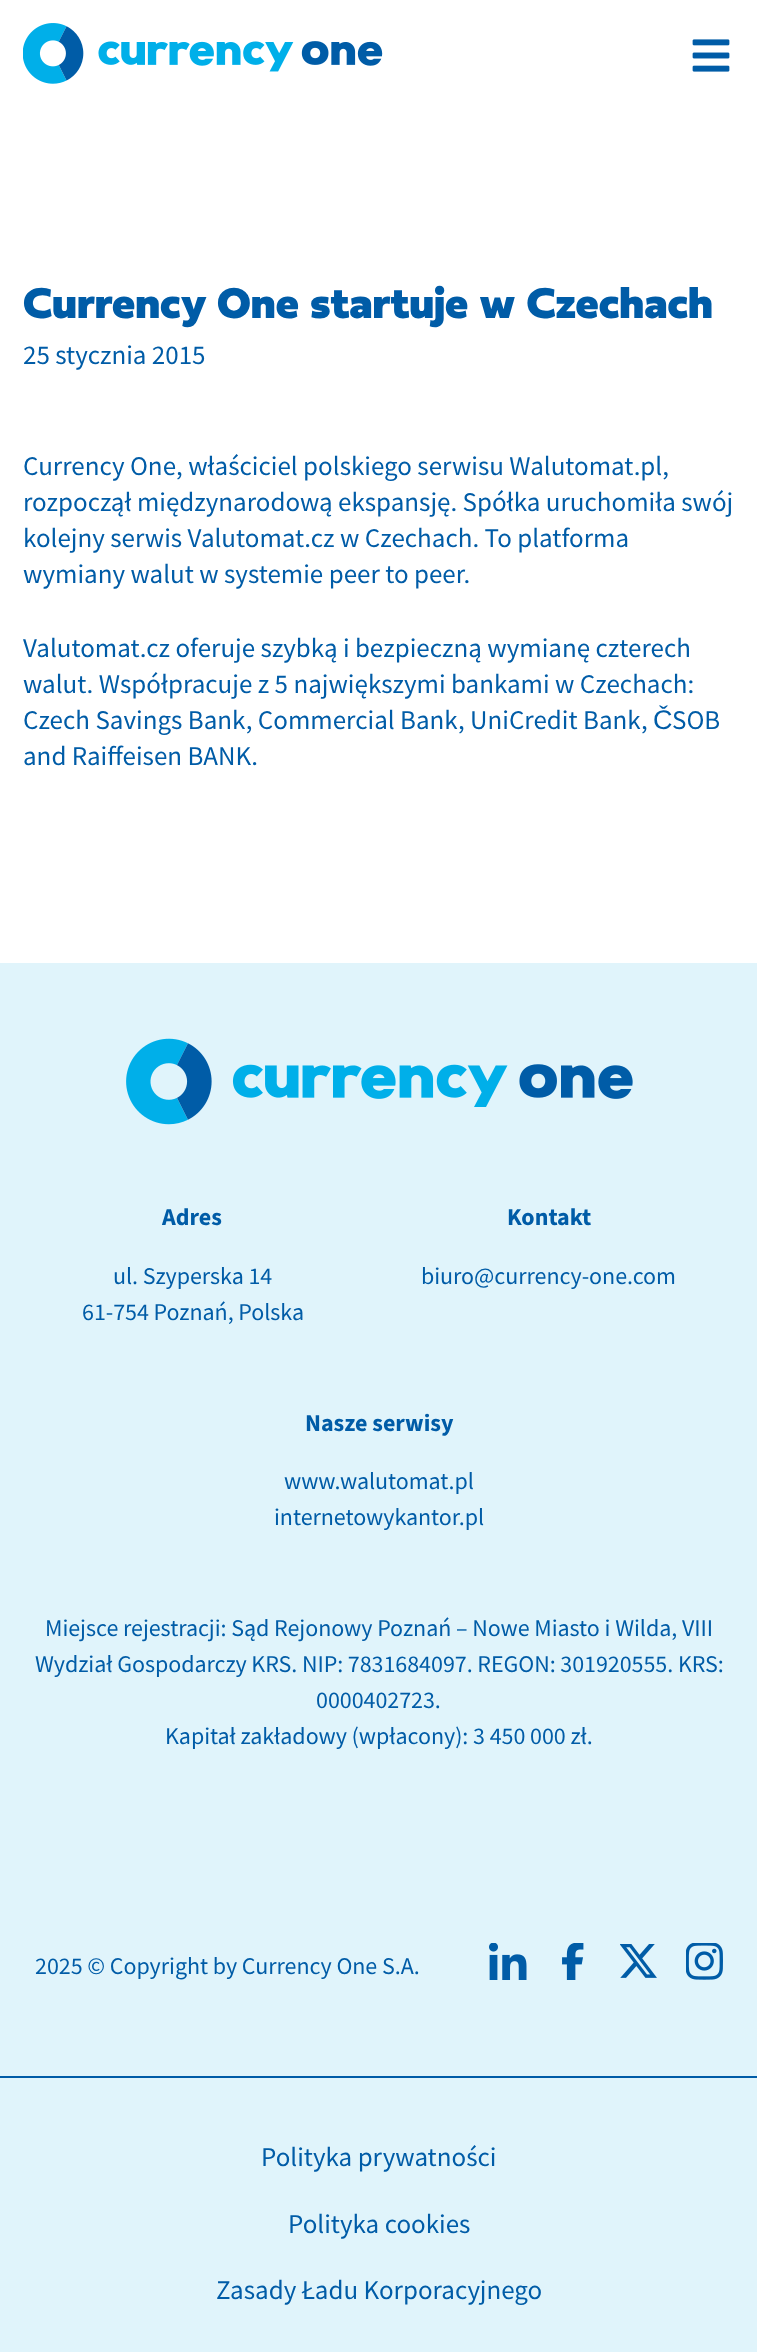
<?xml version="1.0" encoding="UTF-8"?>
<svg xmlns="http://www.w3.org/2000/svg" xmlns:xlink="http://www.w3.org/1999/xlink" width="757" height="2352">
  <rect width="100%" height="100%" fill="#ffffff" />
  <image x="23" y="23" width="360" height="61" xlink:href="image1.png" />
  <image x="692" y="39" width="38" height="33" xlink:href="image2.png" />
  <rect y="963" width="757" height="1389" fill="#e0f4fb" />
  <image x="126" y="1038" width="507" height="87" xlink:href="image3.png" />
  <image x="489" y="1943" width="38" height="37" xlink:href="image4.png" />
  <image x="562" y="1943" width="22" height="37" xlink:href="image5.png" />
  <image x="620" y="1944" width="37" height="34" xlink:href="image6.png" />
  <image x="686" y="1943" width="37" height="37" xlink:href="image7.png" />
  <rect y="2076" width="757" height="2" fill="#005ca7" />
  <text x="23" y="318" style="font-family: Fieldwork; font-size: 45px; font-weight: 900; fill: #005ca7">Currency One startuje w Czechach</text>
  <text x="23" y="364" style="font-family: Source Sans Pro; font-size: 27px; fill: #005ca7">25 stycznia 2015</text>
  <text x="23" y="475" style="font-family: Source Sans Pro; font-size: 27px; fill: #005ca7">Currency One, właściciel polskiego serwisu Walutomat.pl,</text>
  <text x="23" y="511" style="font-family: Source Sans Pro; font-size: 27px; fill: #005ca7">rozpoczął międzynarodową ekspansję. Spółka uruchomiła swój</text>
  <text x="23" y="547" style="font-family: Source Sans Pro; font-size: 27px; fill: #005ca7">kolejny serwis Valutomat.cz w Czechach. To platforma</text>
  <text x="23" y="583" style="font-family: Source Sans Pro; font-size: 27px; fill: #005ca7">wymiany walut w systemie peer to peer.</text>
  <text x="23" y="657" style="font-family: Source Sans Pro; font-size: 27px; fill: #005ca7">Valutomat.cz oferuje szybką i bezpieczną wymianę czterech</text>
  <text x="23" y="693" style="font-family: Source Sans Pro; font-size: 27px; fill: #005ca7">walut. Współpracuje z 5 największymi bankami w Czechach:</text>
  <text x="23" y="729" style="font-family: Source Sans Pro; font-size: 27px; fill: #005ca7">Czech Savings Bank, Commercial Bank, UniCredit Bank,</text>
  <text x="653" y="729" style="font-family: Liberation Sans; font-size: 27px; fill: #005ca7">Č</text>
  <text x="672" y="729" style="font-family: Source Sans Pro; font-size: 27px; fill: #005ca7">SOB</text>
  <text x="23" y="765" style="font-family: Source Sans Pro; font-size: 27px; fill: #005ca7">and Raiffeisen BANK.</text>
  <text x="162" y="1225" style="font-family: 'Source Sans 3'; font-size: 24px; font-weight: bold; fill: #005ca7">Adres</text>
  <text x="113" y="1284" style="font-family: Source Sans Pro; font-size: 24px; letter-spacing: -0.05px; fill: #005ca7">ul. Szyperska 14</text>
  <text x="82" y="1320" style="font-family: Source Sans Pro; font-size: 24px; letter-spacing: -0.05px; fill: #005ca7">61-754 Poznań, Polska</text>
  <text x="507" y="1225" style="font-family: 'Source Sans 3'; font-size: 24px; font-weight: bold; fill: #005ca7">Kontakt</text>
  <text x="421" y="1284" style="font-family: Source Sans Pro; font-size: 24px; letter-spacing: -0.05px; fill: #005ca7">biuro@currency-one.com</text>
  <text x="305" y="1431" style="font-family: 'Source Sans 3'; font-size: 24px; font-weight: bold; fill: #005ca7">Nasze serwisy</text>
  <text x="284" y="1489" style="font-family: Source Sans Pro; font-size: 24px; letter-spacing: -0.05px; fill: #005ca7">www.walutomat.pl</text>
  <text x="274" y="1525" style="font-family: Source Sans Pro; font-size: 24px; letter-spacing: -0.05px; fill: #005ca7">internetowykantor.pl</text>
  <text x="45" y="1636" style="font-family: Source Sans Pro; font-size: 24px; letter-spacing: -0.05px; fill: #005ca7">Miejsce rejestracji: Sąd Rejonowy Poznań – Nowe Miasto i Wilda, VIII</text>
  <text x="35" y="1672" style="font-family: Source Sans Pro; font-size: 24px; letter-spacing: -0.05px; fill: #005ca7">Wydział Gospodarczy KRS. NIP: 7831684097. REGON: 301920555. KRS:</text>
  <text x="316" y="1708" style="font-family: Source Sans Pro; font-size: 24px; letter-spacing: -0.05px; fill: #005ca7">0000402723.</text>
  <text x="165" y="1744" style="font-family: Source Sans Pro; font-size: 24px; letter-spacing: -0.05px; fill: #005ca7">Kapitał zakładowy (wpłacony): 3 450 000 zł.</text>
  <text x="35" y="1974" style="font-family: Source Sans Pro; font-size: 24px; letter-spacing: -0.05px; fill: #005ca7">2025 © Copyright by Currency One S.A.</text>
  <text x="261" y="2166" style="font-family: Source Sans Pro; font-size: 27px; fill: #005ca7">Polityka prywatności</text>
  <text x="288" y="2233" style="font-family: Source Sans Pro; font-size: 27px; fill: #005ca7">Polityka cookies</text>
  <text x="216" y="2299" style="font-family: Source Sans Pro; font-size: 27px; fill: #005ca7">Zasady Ładu Korporacyjnego</text>
</svg>
